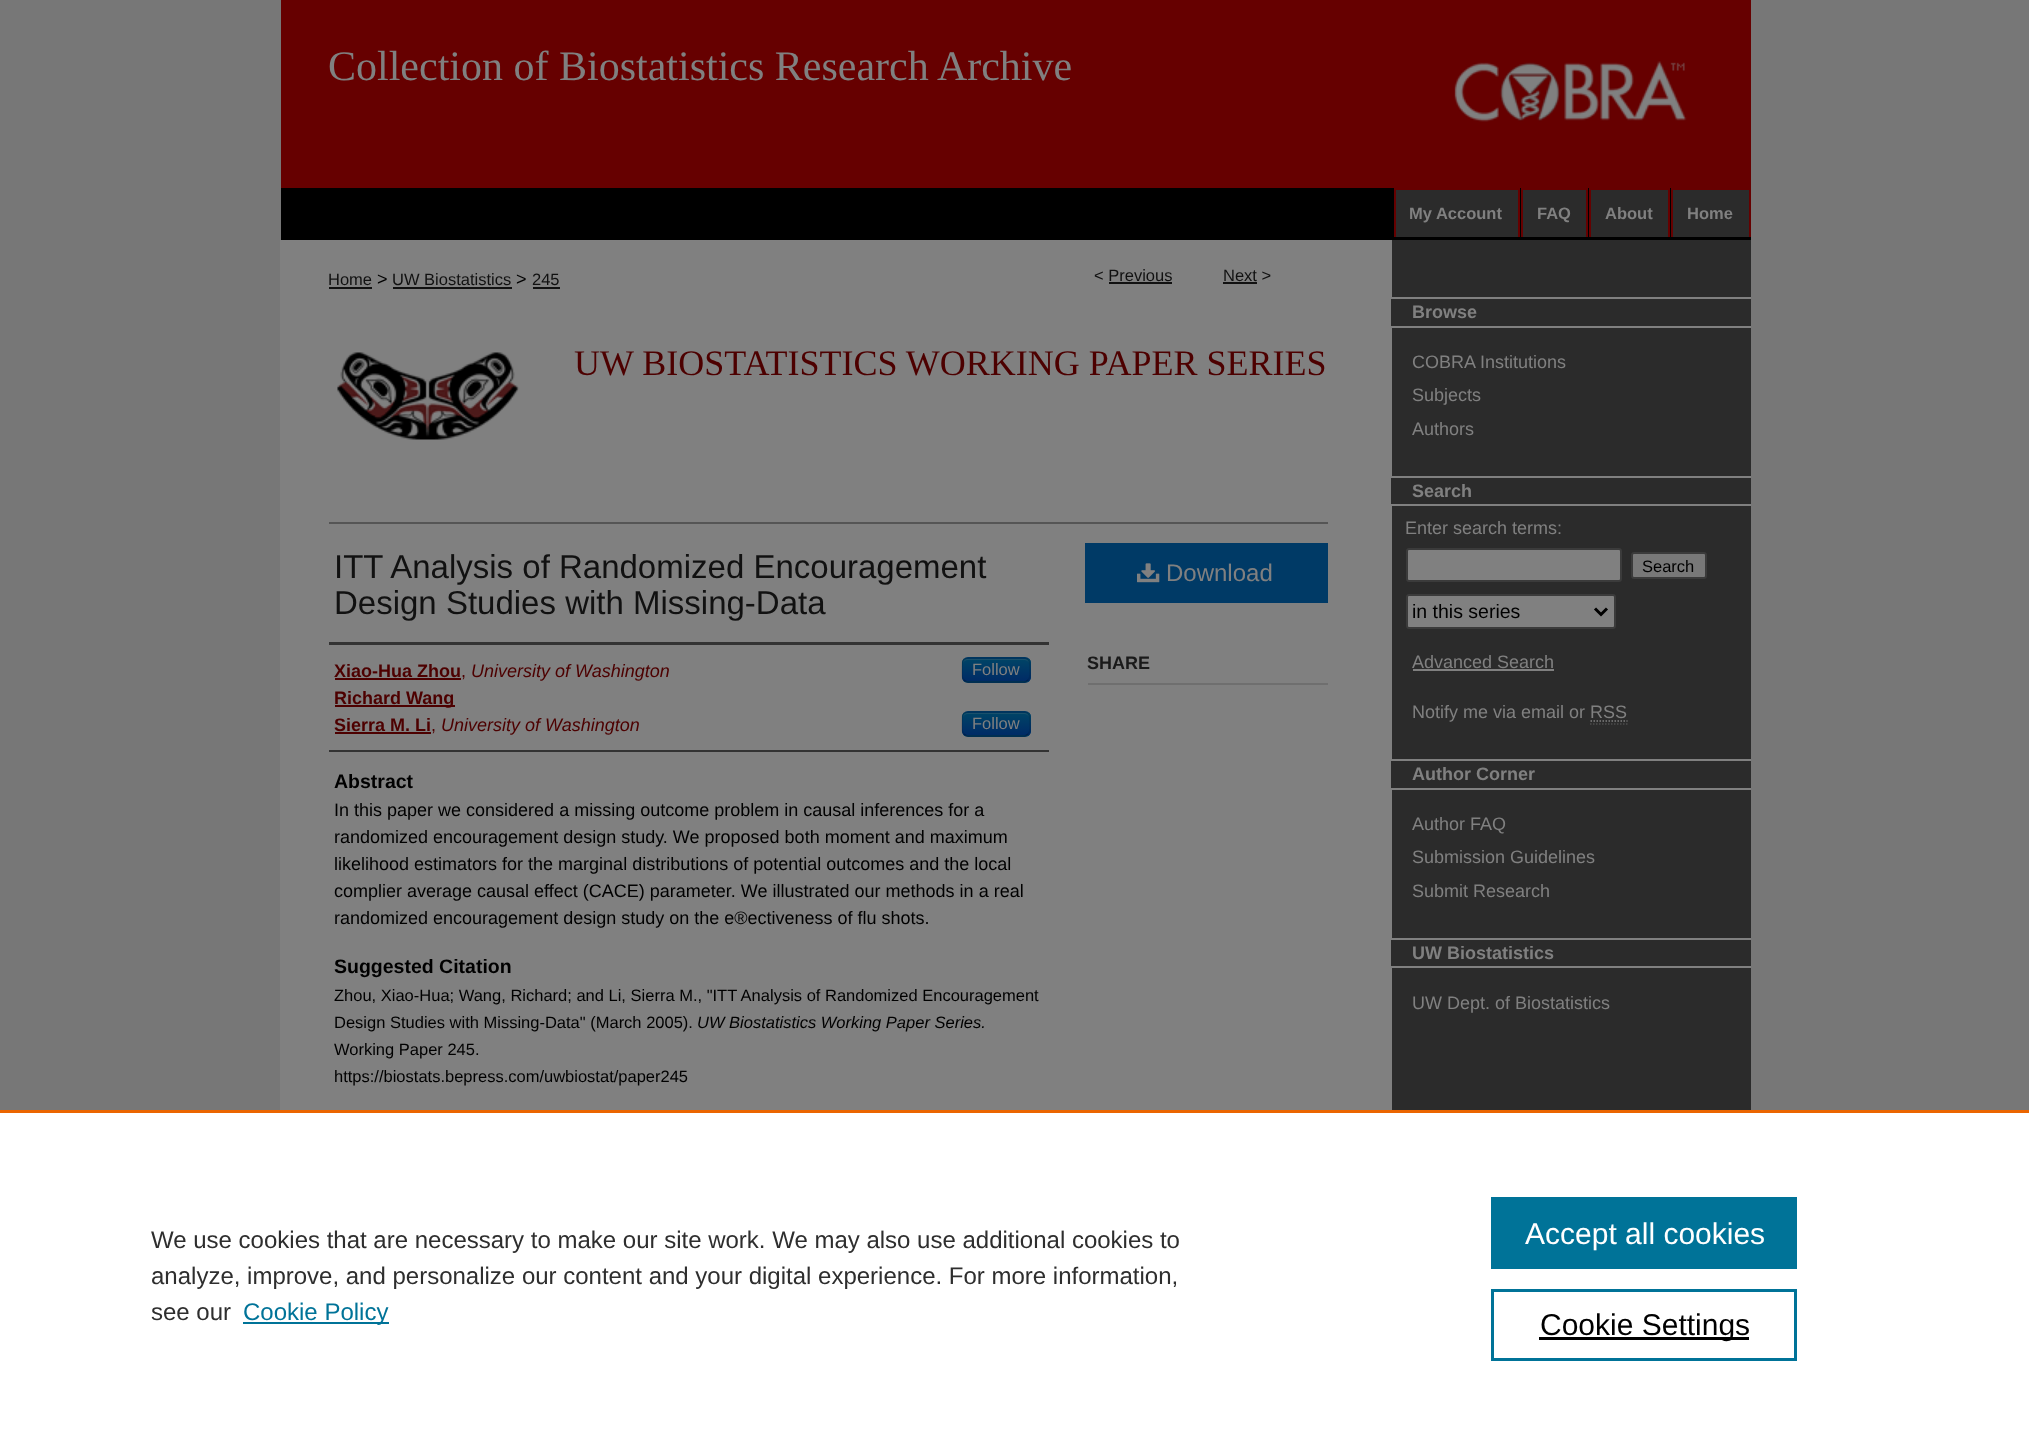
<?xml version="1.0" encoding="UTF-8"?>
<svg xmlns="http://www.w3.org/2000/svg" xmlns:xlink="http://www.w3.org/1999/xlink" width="2029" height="1440">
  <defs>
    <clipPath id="clip1"><rect x="962" y="657" width="69" height="26" rx="6" /></clipPath>
    <linearGradient id="g1" gradientUnits="userSpaceOnUse" x1="996" y1="659" x2="996" y2="681"><stop offset="0" stop-color="#004466" /><stop offset="1" stop-color="#002b66" /></linearGradient>
    <clipPath id="clip2"><rect x="962" y="711" width="69" height="26" rx="6" /></clipPath>
    <linearGradient id="g2" gradientUnits="userSpaceOnUse" x1="996" y1="713" x2="996" y2="735"><stop offset="0" stop-color="#004466" /><stop offset="1" stop-color="#002b66" /></linearGradient>
  </defs>
  <rect width="100%" height="100%" fill="#777777" />
  <rect x="281" width="1470" height="188" fill="#660000" />
  <image x="1454" y="61" width="233" height="61" xlink:href="image1.png" />
  <rect x="281" y="188" width="1470" height="52" fill="#000000" />
  <rect x="1396" y="190" width="122" height="47" fill="#2b2b2b" />
  <rect x="1394" y="188" width="126" height="2" fill="#660000" />
  <rect x="1518" y="188" width="2" height="49" fill="#660000" />
  <rect x="1394" y="188" width="2" height="49" fill="#660000" />
  <rect x="1523" y="190" width="63" height="47" fill="#2b2b2b" />
  <rect x="1521" y="188" width="66" height="2" fill="#660000" />
  <rect x="1586" y="188" width="2" height="49" fill="#660000" />
  <rect x="1521" y="188" width="2" height="49" fill="#660000" />
  <rect x="1591" y="190" width="77" height="47" fill="#2b2b2b" />
  <rect x="1589" y="188" width="81" height="2" fill="#660000" />
  <rect x="1668" y="188" width="2" height="49" fill="#660000" />
  <rect x="1589" y="188" width="2" height="49" fill="#660000" />
  <rect x="1673" y="190" width="76" height="47" fill="#2b2b2b" />
  <rect x="1671" y="188" width="80" height="2" fill="#660000" />
  <rect x="1749" y="188" width="2" height="49" fill="#660000" />
  <rect x="1671" y="188" width="2" height="49" fill="#660000" />
  <rect x="1392" y="240" width="359" height="870" fill="#2b2b2b" />
  <rect x="280" y="240" width="1112" height="870" fill="#808080" />
  <rect x="329" y="287" width="43" height="2" fill="#111111" />
  <rect x="393" y="287" width="119" height="2" fill="#111111" />
  <rect x="533" y="287" width="27" height="2" fill="#111111" />
  <rect x="1109" y="282" width="63" height="2" fill="#111111" />
  <rect x="1223" y="282" width="34" height="2" fill="#111111" />
  <image x="337" y="352" width="183" height="88" xlink:href="image2.png" />
  <rect x="329" y="522" width="999" height="2" fill="#555555" />
  <rect x="329" y="642" width="720" height="3" fill="#333333" />
  <rect x="329" y="750" width="720" height="2" fill="#333333" />
  <rect x="335" y="678" width="126" height="2" fill="#4d0000" />
  <rect x="962" y="657" width="69" height="26" rx="6" fill="#003a66" />
  <g clip-path="url(#clip1)">
    <rect x="962" y="659" width="69" height="22" fill="url(#g1)" />
  </g>
  <path d="M 968 660 h 56 c 3 0 5 2 5 4 c 0 -3 -2 -5 -5 -5 h -56 c -3 0 -5 2 -5 5 c 0 -2 2 -4 5 -4 z" fill="#1a506b" />
  <path d="M 1028 680 c -1 1 -2 2 -3.5 2 h -57 c -1.5 0 -2.5 -1 -3.5 -2" fill="none" stroke="#000000" stroke-opacity="0.25" stroke-width="1.5" />
  <path d="M 964 680 c -3 -2.5 -2 -7 -2 -10 c 0 -13.5 1 -12 15 -12 h 38 c 14 0 15 -1.5 15 12 c 0 3 1 7.5 -2 10" fill="none" stroke="#000000" stroke-opacity="0.1" stroke-width="1.5" />
  <rect x="335" y="705" width="120" height="2" fill="#4d0000" />
  <rect x="335" y="732" width="96" height="2" fill="#4d0000" />
  <rect x="962" y="711" width="69" height="26" rx="6" fill="#003a66" />
  <g clip-path="url(#clip2)">
    <rect x="962" y="713" width="69" height="22" fill="url(#g2)" />
  </g>
  <path d="M 968 714 h 56 c 3 0 5 2 5 4 c 0 -3 -2 -5 -5 -5 h -56 c -3 0 -5 2 -5 5 c 0 -2 2 -4 5 -4 z" fill="#1a506b" />
  <path d="M 1028 734 c -1 1 -2 2 -3.5 2 h -57 c -1.5 0 -2.5 -1 -3.5 -2" fill="none" stroke="#000000" stroke-opacity="0.25" stroke-width="1.5" />
  <path d="M 964 734 c -3 -2.5 -2 -7 -2 -10 c 0 -13.5 1 -12 15 -12 h 38 c 14 0 15 -1.5 15 12 c 0 3 1 7.5 -2 10" fill="none" stroke="#000000" stroke-opacity="0.1" stroke-width="1.5" />
  <rect x="1085" y="543" width="243" height="60" fill="#003a66" />
  <image x="1137" y="563" width="23" height="20" xlink:href="image3.png" />
  <rect x="1088" y="683" width="240" height="2" fill="#6f6f6f" />
  <rect x="1391" y="299" width="1" height="27" fill="#2b2b2b" />
  <rect x="1391" y="297" width="360" height="2" fill="#808080" />
  <rect x="1391" y="326" width="360" height="2" fill="#808080" />
  <rect x="1391" y="478" width="1" height="26" fill="#2b2b2b" />
  <rect x="1391" y="476" width="360" height="2" fill="#808080" />
  <rect x="1391" y="504" width="360" height="2" fill="#808080" />
  <rect x="1407" y="549" width="214" height="32" rx="2" fill="#808080" stroke="#3b3b3b" stroke-width="2" />
  <rect x="1632" y="553" width="74" height="25" rx="2" fill="#787878" stroke="#3b3b3b" stroke-width="2" />
  <rect x="1407" y="595" width="208" height="33" rx="2" fill="#808080" stroke="#3b3b3b" stroke-width="2" />
  <path d="M 1595 608.5 l 6 6 l 6 -6" fill="none" stroke="#000000" stroke-width="3" />
  <rect x="1413" y="669" width="141" height="2" fill="#808080" />
  <path d="M 1590.5 721 h 37" fill="none" stroke="#808080" stroke-width="1.5" stroke-dasharray="1.5 1.5" />
  <path d="M 1590 724 h 37.5" fill="none" stroke="#4d4d4d" stroke-width="1.5" stroke-dasharray="1.5 1.5" />
  <rect x="1391" y="761" width="1" height="27" fill="#2b2b2b" />
  <rect x="1391" y="759" width="360" height="2" fill="#808080" />
  <rect x="1391" y="788" width="360" height="2" fill="#808080" />
  <rect x="1391" y="940" width="1" height="26" fill="#2b2b2b" />
  <rect x="1391" y="938" width="360" height="2" fill="#808080" />
  <rect x="1391" y="966" width="360" height="2" fill="#808080" />
  <rect y="1113" width="2029" height="327" fill="#ffffff" />
  <rect y="1110" width="2029" height="3" fill="#eb6500" />
  <rect x="243" y="1322" width="146" height="2" fill="#007398" />
  <rect x="1491" y="1197" width="306" height="72" fill="#007398" />
  <rect x="1492.5" y="1290.5" width="303" height="69" fill="none" stroke="#007398" stroke-width="3" />
  <rect x="1539" y="1337" width="210" height="3" fill="#000000" />
  <text x="328" y="80" style="font-family: Liberation Serif; font-size: 42px; fill: #808080">Collection of Biostatistics Research Archive</text>
  <text x="1409" y="219" style="font-family: Liberation Sans; font-size: 16.5px; font-weight: bold; fill: #808080">My Account</text>
  <text x="1537" y="219" style="font-family: Liberation Sans; font-size: 16.5px; font-weight: bold; fill: #808080">FAQ</text>
  <text x="1605" y="219" style="font-family: Liberation Sans; font-size: 16.5px; font-weight: bold; fill: #808080">About</text>
  <text x="1687" y="219" style="font-family: Liberation Sans; font-size: 16.5px; font-weight: bold; fill: #808080">Home</text>
  <text x="328" y="285" style="font-family: Liberation Sans; font-size: 16.5px; fill: #111111">Home</text>
  <text x="377" y="285" style="font-family: Liberation Sans; font-size: 18px; fill: #000000">&gt;</text>
  <text x="392" y="285" style="font-family: Liberation Sans; font-size: 16.5px; fill: #111111">UW Biostatistics</text>
  <text x="516" y="285" style="font-family: Liberation Sans; font-size: 18px; fill: #000000">&gt;</text>
  <text x="532" y="285" style="font-family: Liberation Sans; font-size: 16.5px; fill: #111111">245</text>
  <text x="1094" y="281" style="font-family: Liberation Sans; font-size: 16.5px; fill: #111111">&lt; Previous</text>
  <text x="1223" y="281" style="font-family: Liberation Sans; font-size: 16.5px; fill: #111111">Next &gt;</text>
  <text x="574" y="375" style="font-family: Liberation Serif; font-size: 36px; fill: #4d0000">UW BIOSTATISTICS WORKING PAPER SERIES</text>
  <text x="334" y="578" style="font-family: Liberation Sans; font-size: 33px; fill: #111111">ITT Analysis of Randomized Encouragement</text>
  <text x="334" y="614" style="font-family: Liberation Sans; font-size: 33px; fill: #111111">Design Studies with Missing-Data</text>
  <text x="334" y="677" style="font-family: Liberation Sans; font-size: 18px; font-weight: bold; fill: #4d0000">Xiao-Hua Zhou</text>
  <text x="461" y="677" style="font-family: Liberation Sans; font-size: 18px; fill: #4d0000">,</text>
  <text x="471" y="677" style="font-family: Liberation Sans; font-size: 18px; font-style: italic; fill: #4d0000">University of Washington</text>
  <text x="972" y="675" style="font-family: Liberation Sans; font-size: 16.5px; fill: #808080">Follow</text>
  <text x="334" y="704" style="font-family: Liberation Sans; font-size: 18px; font-weight: bold; fill: #4d0000">Richard Wang</text>
  <text x="334" y="731" style="font-family: Liberation Sans; font-size: 18px; font-weight: bold; fill: #4d0000">Sierra M. Li</text>
  <text x="431" y="731" style="font-family: Liberation Sans; font-size: 18px; fill: #4d0000">,</text>
  <text x="441" y="731" style="font-family: Liberation Sans; font-size: 18px; font-style: italic; fill: #4d0000">University of Washington</text>
  <text x="972" y="729" style="font-family: Liberation Sans; font-size: 16.5px; fill: #808080">Follow</text>
  <text x="334" y="788" style="font-family: Liberation Sans; font-size: 19.5px; font-weight: bold; fill: #000000">Abstract</text>
  <text x="334" y="816" style="font-family: Liberation Sans; font-size: 18px; fill: #000000">In this paper we considered a missing outcome problem in causal inferences for a</text>
  <text x="334" y="843" style="font-family: Liberation Sans; font-size: 18px; fill: #000000">randomized encouragement design study. We proposed both moment and maximum</text>
  <text x="334" y="870" style="font-family: Liberation Sans; font-size: 18px; fill: #000000">likelihood estimators for the marginal distributions of potential outcomes and the local</text>
  <text x="334" y="897" style="font-family: Liberation Sans; font-size: 18px; fill: #000000">complier average causal effect (CACE) parameter. We illustrated our methods in a real</text>
  <text x="334" y="924" style="font-family: Liberation Sans; font-size: 18px; fill: #000000">randomized encouragement design study on the e®ectiveness of flu shots.</text>
  <text x="334" y="973" style="font-family: Liberation Sans; font-size: 19.5px; font-weight: bold; fill: #000000">Suggested Citation</text>
  <text x="334" y="1001" style="font-family: Liberation Sans; font-size: 16.5px; fill: #000000">Zhou, Xiao-Hua; Wang, Richard; and Li, Sierra M., "ITT Analysis of Randomized Encouragement</text>
  <text x="334" y="1028" style="font-family: Liberation Sans; font-size: 16.5px; fill: #000000">Design Studies with Missing-Data" (March 2005).</text>
  <text x="697" y="1028" style="font-family: Liberation Sans; font-size: 16.5px; font-style: italic; fill: #000000">UW Biostatistics Working Paper Series.</text>
  <text x="334" y="1055" style="font-family: Liberation Sans; font-size: 16.5px; fill: #000000">Working Paper 245.</text>
  <text x="334" y="1082" style="font-family: Liberation Sans; font-size: 16.5px; fill: #000000">https://biostats.bepress.com/uwbiostat/paper245</text>
  <text x="1166" y="581" style="font-family: Liberation Sans; font-size: 24px; fill: #808080">Download</text>
  <text x="1087" y="669" style="font-family: Liberation Sans; font-size: 18px; font-weight: bold; fill: #1a1a1a">SHARE</text>
  <text x="1412" y="318" style="font-family: Liberation Sans; font-size: 18px; font-weight: bold; fill: #808080">Browse</text>
  <text x="1412" y="368" style="font-family: Liberation Sans; font-size: 18px; fill: #808080">COBRA Institutions</text>
  <text x="1412" y="401" style="font-family: Liberation Sans; font-size: 18px; fill: #808080">Subjects</text>
  <text x="1412" y="435" style="font-family: Liberation Sans; font-size: 18px; fill: #808080">Authors</text>
  <text x="1412" y="497" style="font-family: Liberation Sans; font-size: 18px; font-weight: bold; fill: #808080">Search</text>
  <text x="1405" y="534" style="font-family: Liberation Sans; font-size: 18px; fill: #808080">Enter search terms:</text>
  <text x="1642" y="572" style="font-family: Liberation Sans; font-size: 16.5px; fill: #000000">Search</text>
  <text x="1412" y="618" style="font-family: Liberation Sans; font-size: 19.5px; fill: #000000">in this series</text>
  <text x="1412" y="668" style="font-family: Liberation Sans; font-size: 18px; fill: #808080">Advanced Search</text>
  <text x="1412" y="718" style="font-family: Liberation Sans; font-size: 18px; fill: #808080">Notify me via email or RSS</text>
  <text x="1412" y="780" style="font-family: Liberation Sans; font-size: 18px; font-weight: bold; fill: #808080">Author Corner</text>
  <text x="1412" y="830" style="font-family: Liberation Sans; font-size: 18px; fill: #808080">Author FAQ</text>
  <text x="1412" y="863" style="font-family: Liberation Sans; font-size: 18px; fill: #808080">Submission Guidelines</text>
  <text x="1412" y="897" style="font-family: Liberation Sans; font-size: 18px; fill: #808080">Submit Research</text>
  <text x="1412" y="959" style="font-family: Liberation Sans; font-size: 18px; font-weight: bold; fill: #808080">UW Biostatistics</text>
  <text x="1412" y="1009" style="font-family: Liberation Sans; font-size: 18px; fill: #808080">UW Dept. of Biostatistics</text>
  <text x="151" y="1248" style="font-family: Liberation Sans; font-size: 24px; fill: #2e2e2e">We use cookies that are necessary to make our site work. We may also use additional cookies to</text>
  <text x="151" y="1284" style="font-family: Liberation Sans; font-size: 24px; fill: #2e2e2e">analyze, improve, and personalize our content and your digital experience. For more information,</text>
  <text x="151" y="1320" style="font-family: Liberation Sans; font-size: 24px; fill: #2e2e2e">see our</text>
  <text x="243" y="1320" style="font-family: Liberation Sans; font-size: 24px; fill: #007398">Cookie Policy</text>
  <text x="1525" y="1244" style="font-family: Liberation Sans; font-size: 30px; fill: #ffffff">Accept all cookies</text>
  <text x="1540" y="1335" style="font-family: Liberation Sans; font-size: 30px; fill: #000000">Cookie Settings</text>
</svg>
